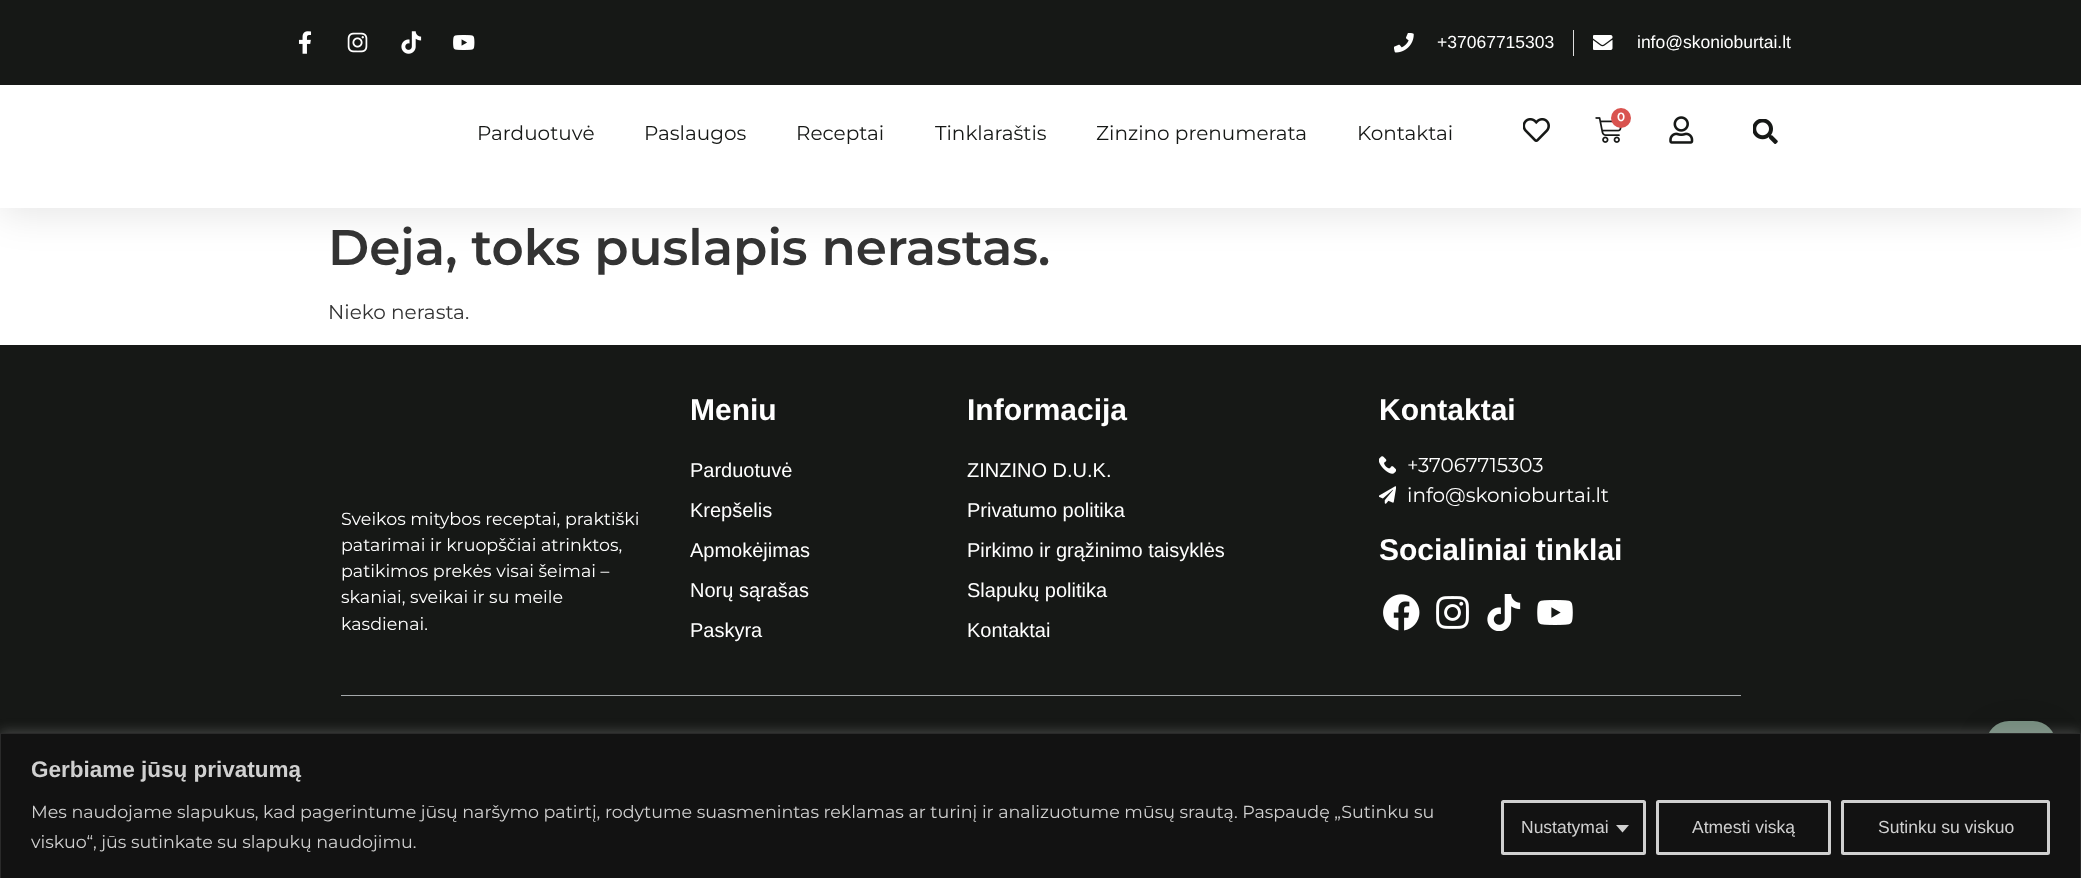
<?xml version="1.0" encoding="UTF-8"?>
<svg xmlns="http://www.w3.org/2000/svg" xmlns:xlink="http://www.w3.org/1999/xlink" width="2081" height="878">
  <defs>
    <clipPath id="clip1"><path d="M 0 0 h 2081 v 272 h -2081 z m 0 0 h 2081 v 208 h -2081 z" clip-rule="evenodd" /></clipPath>
  </defs>
  <rect width="100%" height="100%" fill="#ffffff" />
  <g clip-path="url(#clip1)">
    <rect y="6" width="2081" height="208" fill="#000000" fill-opacity="0.1" filter="blur(19px)" />
  </g>
  <rect width="2081" height="85" fill="#161816" />
  <image x="298" y="31" width="14" height="23" xlink:href="image1.png" />
  <image x="347" y="32" width="21" height="21" xlink:href="image2.png" />
  <image x="401" y="31" width="21" height="23" xlink:href="image3.png" />
  <image x="453" y="35" width="22" height="15" xlink:href="image4.png" />
  <image x="1394" y="33" width="20" height="20" xlink:href="image5.png" />
  <rect x="1573" y="30" width="1" height="26" fill="#dddddd" />
  <image x="1593" y="35" width="20" height="15" xlink:href="image6.png" />
  <image x="1523" y="118" width="27" height="24" xlink:href="image7.png" />
  <image x="1595" y="117" width="27" height="26" xlink:href="image8.png" />
  <circle cx="1621" cy="118" r="10" fill="#d9534f" />
  <image x="1669" y="116" width="25" height="28" xlink:href="image9.png" />
  <image x="1753" y="119" width="25" height="25" xlink:href="image10.png" />
  <rect y="345" width="2081" height="388" fill="#161816" />
  <image x="1379" y="456" width="17" height="18" xlink:href="image11.png" />
  <image x="1379" y="486" width="17" height="18" xlink:href="image12.png" />
  <image x="1383" y="594" width="37" height="37" xlink:href="image13.png" />
  <image x="1436" y="596" width="33" height="33" xlink:href="image14.png" />
  <image x="1487" y="594" width="34" height="37" xlink:href="image15.png" />
  <image x="1537" y="600" width="36" height="25" xlink:href="image16.png" />
  <rect x="341" y="695" width="1400" height="1" fill="#a4a8aa" />
  <rect x="1986" y="731" width="70" height="70" rx="23" fill="#000000" fill-opacity="0.25" filter="blur(15px)" />
  <rect x="1986" y="721" width="70" height="70" rx="23" fill="#768d7f" />
  <rect y="731" width="2081" height="147" fill="#acabab" fill-opacity="0.3" filter="blur(6px)" />
  <rect x="0.5" y="733.5" width="2080" height="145" fill="#121212" stroke="#2a2a2a" />
  <rect x="1502.5" y="801.5" width="142" height="52" rx="1" fill="none" stroke="#d0d0d0" stroke-width="3" />
  <path d="M 1616 825 h 13 l -6.5 7.5 z" fill="#d0d0d0" />
  <rect x="1657.5" y="801.5" width="172" height="52" rx="1" fill="none" stroke="#d0d0d0" stroke-width="3" />
  <rect x="1842.5" y="801.5" width="206" height="52" rx="1" fill="none" stroke="#d0d0d0" stroke-width="3" />
  <text x="1437" y="48" style="font-family: Liberation Sans; font-size: 17.5px; fill: #ffffff">+37067715303</text>
  <text x="1637" y="48" style="font-family: Liberation Sans; font-size: 17.5px; fill: #ffffff">info@skonioburtai.lt</text>
  <text x="477" y="140" style="font-family: Montserrat; font-size: 20px; fill: #161816">Parduotuvė</text>
  <text x="644" y="140" style="font-family: Montserrat; font-size: 20px; fill: #161816">Paslaugos</text>
  <text x="796" y="140" style="font-family: Montserrat; font-size: 20px; fill: #161816">Receptai</text>
  <text x="935" y="140" style="font-family: Montserrat; font-size: 20px; fill: #161816">Tinklaraštis</text>
  <text x="1096" y="140" style="font-family: Montserrat; font-size: 20px; fill: #161816">Zinzino prenumerata</text>
  <text x="1357" y="140" style="font-family: Montserrat; font-size: 20px; fill: #161816">Kontaktai</text>
  <text x="1617" y="121" style="font-family: Montserrat; font-size: 12px; font-weight: 600; fill: #ffffff">0</text>
  <text x="328" y="265" style="font-family: Montserrat; font-size: 50px; font-weight: 600; fill: #333333">Deja, toks puslapis nerastas.</text>
  <text x="328" y="319" style="font-family: Montserrat; font-size: 20px; fill: #333333">Nieko nerasta.</text>
  <text x="341" y="525" style="font-family: Montserrat; font-size: 17.5px; fill: #ffffff">Sveikos mitybos receptai, praktiški</text>
  <text x="341" y="551" style="font-family: Montserrat; font-size: 17.5px; fill: #ffffff">patarimai ir kruopščiai atrinktos,</text>
  <text x="341" y="577" style="font-family: Montserrat; font-size: 17.5px; fill: #ffffff">patikimos prekės visai šeimai –</text>
  <text x="341" y="603" style="font-family: Montserrat; font-size: 17.5px; fill: #ffffff">skaniai, sveikai ir su meile</text>
  <text x="341" y="630" style="font-family: Montserrat; font-size: 17.5px; fill: #ffffff">kasdienai.</text>
  <text x="690" y="420" style="font-family: Liberation Sans; font-size: 30px; font-weight: bold; fill: #ffffff">Meniu</text>
  <text x="690" y="477" style="font-family: Liberation Sans; font-size: 20px; fill: #ffffff">Parduotuvė</text>
  <text x="690" y="517" style="font-family: Liberation Sans; font-size: 20px; fill: #ffffff">Krepšelis</text>
  <text x="690" y="557" style="font-family: Liberation Sans; font-size: 20px; fill: #ffffff">Apmokėjimas</text>
  <text x="690" y="597" style="font-family: Liberation Sans; font-size: 20px; fill: #ffffff">Norų sąrašas</text>
  <text x="690" y="637" style="font-family: Liberation Sans; font-size: 20px; fill: #ffffff">Paskyra</text>
  <text x="967" y="420" style="font-family: Liberation Sans; font-size: 30px; font-weight: bold; fill: #ffffff">Informacija</text>
  <text x="967" y="477" style="font-family: Liberation Sans; font-size: 20px; fill: #ffffff">ZINZINO D.U.K.</text>
  <text x="967" y="517" style="font-family: Liberation Sans; font-size: 20px; fill: #ffffff">Privatumo politika</text>
  <text x="967" y="557" style="font-family: Liberation Sans; font-size: 20px; fill: #ffffff">Pirkimo ir grąžinimo taisyklės</text>
  <text x="967" y="597" style="font-family: Liberation Sans; font-size: 20px; fill: #ffffff">Slapukų politika</text>
  <text x="967" y="637" style="font-family: Liberation Sans; font-size: 20px; fill: #ffffff">Kontaktai</text>
  <text x="1379" y="420" style="font-family: Liberation Sans; font-size: 30px; font-weight: bold; fill: #ffffff">Kontaktai</text>
  <text x="1407" y="472" style="font-family: Montserrat; font-size: 20px; fill: #ffffff">+37067715303</text>
  <text x="1407" y="502" style="font-family: Montserrat; font-size: 20px; fill: #ffffff">info@skonioburtai.lt</text>
  <text x="1379" y="560" style="font-family: Liberation Sans; font-size: 30px; font-weight: bold; fill: #ffffff">Socialiniai tinklai</text>
  <text x="31" y="777" style="font-family: Liberation Sans; font-size: 22.5px; font-weight: bold; fill: #d0d0d0">Gerbiame jūsų privatumą</text>
  <text x="31" y="818" style="font-family: Montserrat; font-size: 17.5px; fill: #d0d0d0">Mes naudojame slapukus, kad pagerintume jūsų naršymo patirtį, rodytume suasmenintas reklamas ar turinį ir analizuotume mūsų srautą. Paspaudę „Sutinku su</text>
  <text x="31" y="848" style="font-family: Montserrat; font-size: 17.5px; fill: #d0d0d0">viskuo“, jūs sutinkate su slapukų naudojimu.</text>
  <text x="1521" y="833" style="font-family: Liberation Sans; font-size: 17.5px; fill: #d0d0d0">Nustatymai</text>
  <text x="1692" y="833" style="font-family: Liberation Sans; font-size: 17.5px; fill: #d0d0d0">Atmesti viską</text>
  <text x="1878" y="833" style="font-family: Liberation Sans; font-size: 17.5px; fill: #d0d0d0">Sutinku su viskuo</text>
</svg>
